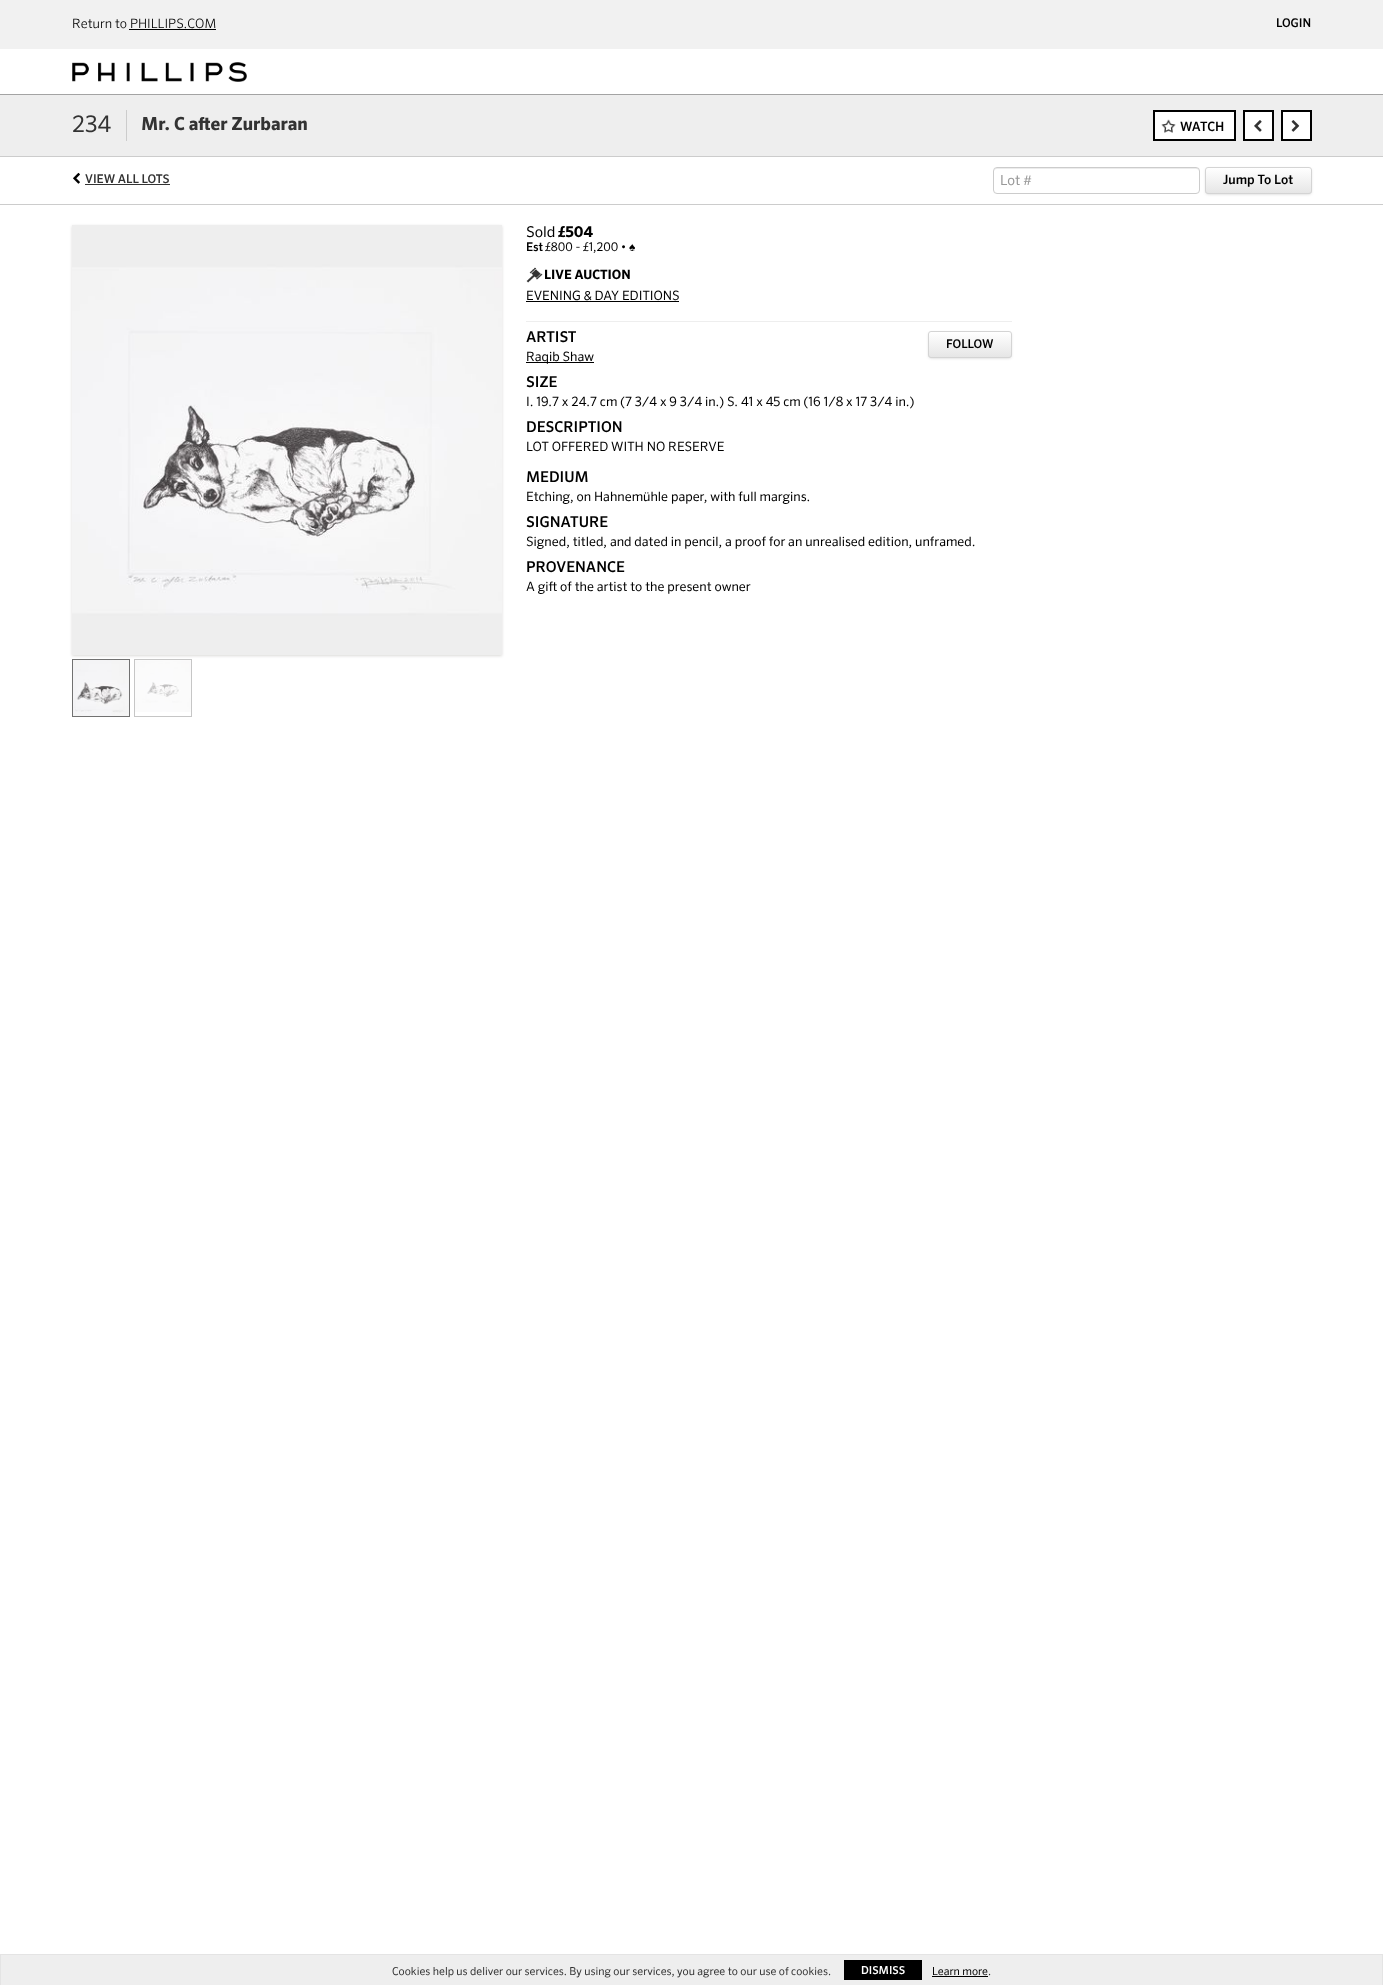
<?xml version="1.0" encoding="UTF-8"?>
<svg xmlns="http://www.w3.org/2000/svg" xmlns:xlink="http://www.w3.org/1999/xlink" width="1383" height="1985">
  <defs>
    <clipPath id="clip1"><rect x="1205" y="167" width="107" height="27" rx="3" /></clipPath>
    <linearGradient id="g1" gradientUnits="userSpaceOnUse" x1="1259" y1="168" x2="1259" y2="193"><stop offset="0" stop-color="#ffffff" /><stop offset="1" stop-color="#e6e6e6" /></linearGradient>
    <clipPath id="clip2"><rect x="928" y="331" width="84" height="27" rx="3" /></clipPath>
    <linearGradient id="g2" gradientUnits="userSpaceOnUse" x1="970" y1="332" x2="970" y2="357"><stop offset="0" stop-color="#ffffff" /><stop offset="1" stop-color="#e6e6e6" /></linearGradient>
  </defs>
  <rect width="100%" height="100%" fill="#ffffff" />
  <rect y="94" width="1383" height="1" fill="#a3a3a3" />
  <rect width="1383" height="49" fill="#f1f1f1" />
  <rect x="129" y="29" width="87" height="1" fill="#000000" />
  <image x="72" y="62" width="175" height="20" xlink:href="image1.png" />
  <rect y="95" width="1383" height="61" fill="#eeeeee" />
  <rect y="156" width="1383" height="1" fill="#cccccc" />
  <rect x="126" y="110" width="1" height="31" fill="#cccccc" />
  <rect x="1154" y="111" width="81" height="29" fill="#ffffff" stroke="#000000" stroke-width="2" />
  <image x="1161" y="119" width="15" height="14" xlink:href="image2.png" />
  <rect x="1244" y="111" width="29" height="29" fill="#ffffff" stroke="#000000" stroke-width="2" />
  <image x="1254" y="120" width="8" height="12" xlink:href="image3.png" />
  <rect x="1282" y="111" width="29" height="29" fill="#ffffff" stroke="#000000" stroke-width="2" />
  <image x="1291" y="120" width="9" height="12" xlink:href="image4.png" />
  <image x="73" y="172" width="7" height="12" xlink:href="image5.png" />
  <rect x="85" y="184" width="85" height="1" fill="#333333" />
  <path d="M 997 169 h 199 c 2 0 3 1 3 3 c 0 -2 -1 -4 -3 -4 h -199 c -2 0 -3 2 -3 4 c 0 -2 1 -3 3 -3 z" fill="#ececec" />
  <rect x="993.5" y="167.5" width="206" height="26" rx="3.5" fill="none" stroke="#cccccc" />
  <rect x="1206" y="169" width="105" height="25" rx="2" fill="#000000" fill-opacity="0.2" filter="blur(1.5px)" />
  <g clip-path="url(#clip1)">
    <rect x="1205" y="168" width="107" height="25" fill="url(#g1)" />
  </g>
  <rect x="1205.5" y="167.5" width="106" height="26" rx="2.5" fill="none" stroke="#d4d4d4" />
  <rect y="204" width="1383" height="1" fill="#cccccc" />
  <rect x="72" y="226" width="430" height="430" fill="#dad9d7" filter="blur(1.5px)" />
  <image x="72" y="225" width="430" height="430" xlink:href="image6.png" />
  <rect x="72.5" y="659.5" width="57" height="57" fill="none" stroke="#717171" />
  <rect x="134.5" y="659.5" width="57" height="57" fill="none" stroke="#c6c6c6" />
  <image x="73" y="660" width="56" height="56" xlink:href="image7.png" />
  <image x="135" y="660" width="56" height="52" xlink:href="image8.png" />
  <image x="526" y="267" width="17" height="16" xlink:href="image9.png" />
  <rect x="526" y="301" width="153" height="1" fill="#000000" />
  <rect x="526" y="321" width="486" height="1" fill="#eeeeee" />
  <rect x="929" y="333" width="82" height="25" rx="2" fill="#000000" fill-opacity="0.2" filter="blur(1.5px)" />
  <g clip-path="url(#clip2)">
    <rect x="928" y="332" width="84" height="25" fill="url(#g2)" />
  </g>
  <path d="M 931 333 h 78 c 1 0 2 1 2 2 c 0 -7 -12 -3 -15 -3 h -52 c -3 0 -15 -4 -15 3 c 0 -1 1 -2 2 -2 z" fill="#ffffff" fill-opacity="0.4" />
  <rect x="928.5" y="331.5" width="83" height="26" rx="2.5" fill="none" stroke="#d4d4d4" />
  <rect x="526" y="362" width="68" height="1" fill="#000000" />
  <rect x="1" y="1955" width="1381" height="30" fill="#eeeeee" />
  <rect y="1954" width="1383" height="1" fill="#e4e4e4" />
  <rect x="1382" y="1954" width="1" height="31" fill="#e4e4e4" />
  <rect y="1954" width="1" height="31" fill="#e4e4e4" />
  <rect x="844" y="1960" width="78" height="20" fill="#000000" />
  <rect x="932" y="1976" width="56" height="1" fill="#000000" />
  <text x="72" y="28" style="font-family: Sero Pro; font-size: 13px; font-weight: 300; fill: #000000">Return to PHILLIPS.COM</text>
  <text x="1276" y="27" style="font-family: Sero Pro; font-size: 12px; font-weight: 500; fill: #000000">LOGIN</text>
  <text x="72" y="132" style="font-family: Sero Pro; font-size: 23px; fill: #333333">234</text>
  <text x="141" y="130" style="font-family: Sero Pro; font-size: 18px; font-weight: bold; fill: #333333">Mr. C after Zurbaran</text>
  <text x="1180" y="131" style="font-family: Sero Pro; font-size: 13px; font-weight: 500; fill: #000000">WATCH</text>
  <text x="85" y="183" style="font-family: Sero Pro; font-size: 12px; font-weight: 500; fill: #333333">VIEW ALL LOTS</text>
  <text x="1000" y="185" style="font-family: Sero Pro; font-size: 14px; fill: #999999">Lot #</text>
  <text x="1223" y="184" style="font-family: Sero Pro; font-size: 13px; font-weight: 500; fill: #000000">Jump To Lot</text>
  <text x="526" y="237" style="font-family: Sero Pro; font-size: 15px; fill: #000000">Sold</text>
  <text x="558" y="237" style="font-family: Sero Pro; font-size: 15px; font-weight: bold; fill: #000000">£504</text>
  <text x="526" y="251" style="font-family: Sero Pro; font-size: 12px; font-weight: 500; fill: #000000">Est</text>
  <text x="545" y="251" style="font-family: Sero Pro; font-size: 12px; fill: #000000">£800 - £1,200 •</text>
  <text x="629" y="251" style="font-family: Liberation Sans; font-size: 12px; fill: #000000">♠</text>
  <text x="544" y="279" style="font-family: Sero Pro; font-size: 13px; font-weight: bold; fill: #000000">LIVE AUCTION</text>
  <text x="526" y="300" style="font-family: Sero Pro; font-size: 13px; fill: #000000">EVENING &amp; DAY EDITIONS</text>
  <text x="526" y="342" style="font-family: Sero Pro; font-size: 15px; font-weight: 500; fill: #000000">ARTIST</text>
  <text x="946" y="348" style="font-family: Sero Pro; font-size: 12px; font-weight: 500; fill: #000000">FOLLOW</text>
  <text x="526" y="361" style="font-family: Sero Pro; font-size: 13px; fill: #000000">Raqib Shaw</text>
  <text x="526" y="387" style="font-family: Sero Pro; font-size: 15px; font-weight: 500; fill: #000000">SIZE</text>
  <text x="526" y="406" style="font-family: Sero Pro; font-size: 13px; fill: #000000">I. 19.7 x 24.7 cm (7 3/4 x 9 3/4 in.) S. 41 x 45 cm (16 1/8 x 17 3/4 in.)</text>
  <text x="526" y="432" style="font-family: Sero Pro; font-size: 15px; font-weight: 500; fill: #000000">DESCRIPTION</text>
  <text x="526" y="451" style="font-family: Sero Pro; font-size: 13px; fill: #000000">LOT OFFERED WITH NO RESERVE</text>
  <text x="526" y="482" style="font-family: Sero Pro; font-size: 15px; font-weight: 500; fill: #000000">MEDIUM</text>
  <text x="526" y="501" style="font-family: Sero Pro; font-size: 13px; fill: #000000">Etching, on Hahnemühle paper, with full margins.</text>
  <text x="526" y="527" style="font-family: Sero Pro; font-size: 15px; font-weight: 500; fill: #000000">SIGNATURE</text>
  <text x="526" y="546" style="font-family: Sero Pro; font-size: 13px; fill: #000000">Signed, titled, and dated in pencil, a proof for an unrealised edition, unframed.</text>
  <text x="526" y="572" style="font-family: Sero Pro; font-size: 15px; font-weight: 500; fill: #000000">PROVENANCE</text>
  <text x="526" y="591" style="font-family: Sero Pro; font-size: 13px; fill: #000000">A gift of the artist to the present owner</text>
  <text x="392" y="1975" style="font-family: Sero Pro; font-size: 11px; fill: #333333">Cookies help us deliver our services. By using our services, you agree to our use of cookies.</text>
  <text x="861" y="1974" style="font-family: Sero Pro; font-size: 11px; font-weight: 500; fill: #ffffff">DISMISS</text>
  <text x="932" y="1975" style="font-family: Sero Pro; font-size: 11px; fill: #000000">Learn more</text>
  <text x="988" y="1975" style="font-family: Sero Pro; font-size: 11px; fill: #333333">.</text>
</svg>
